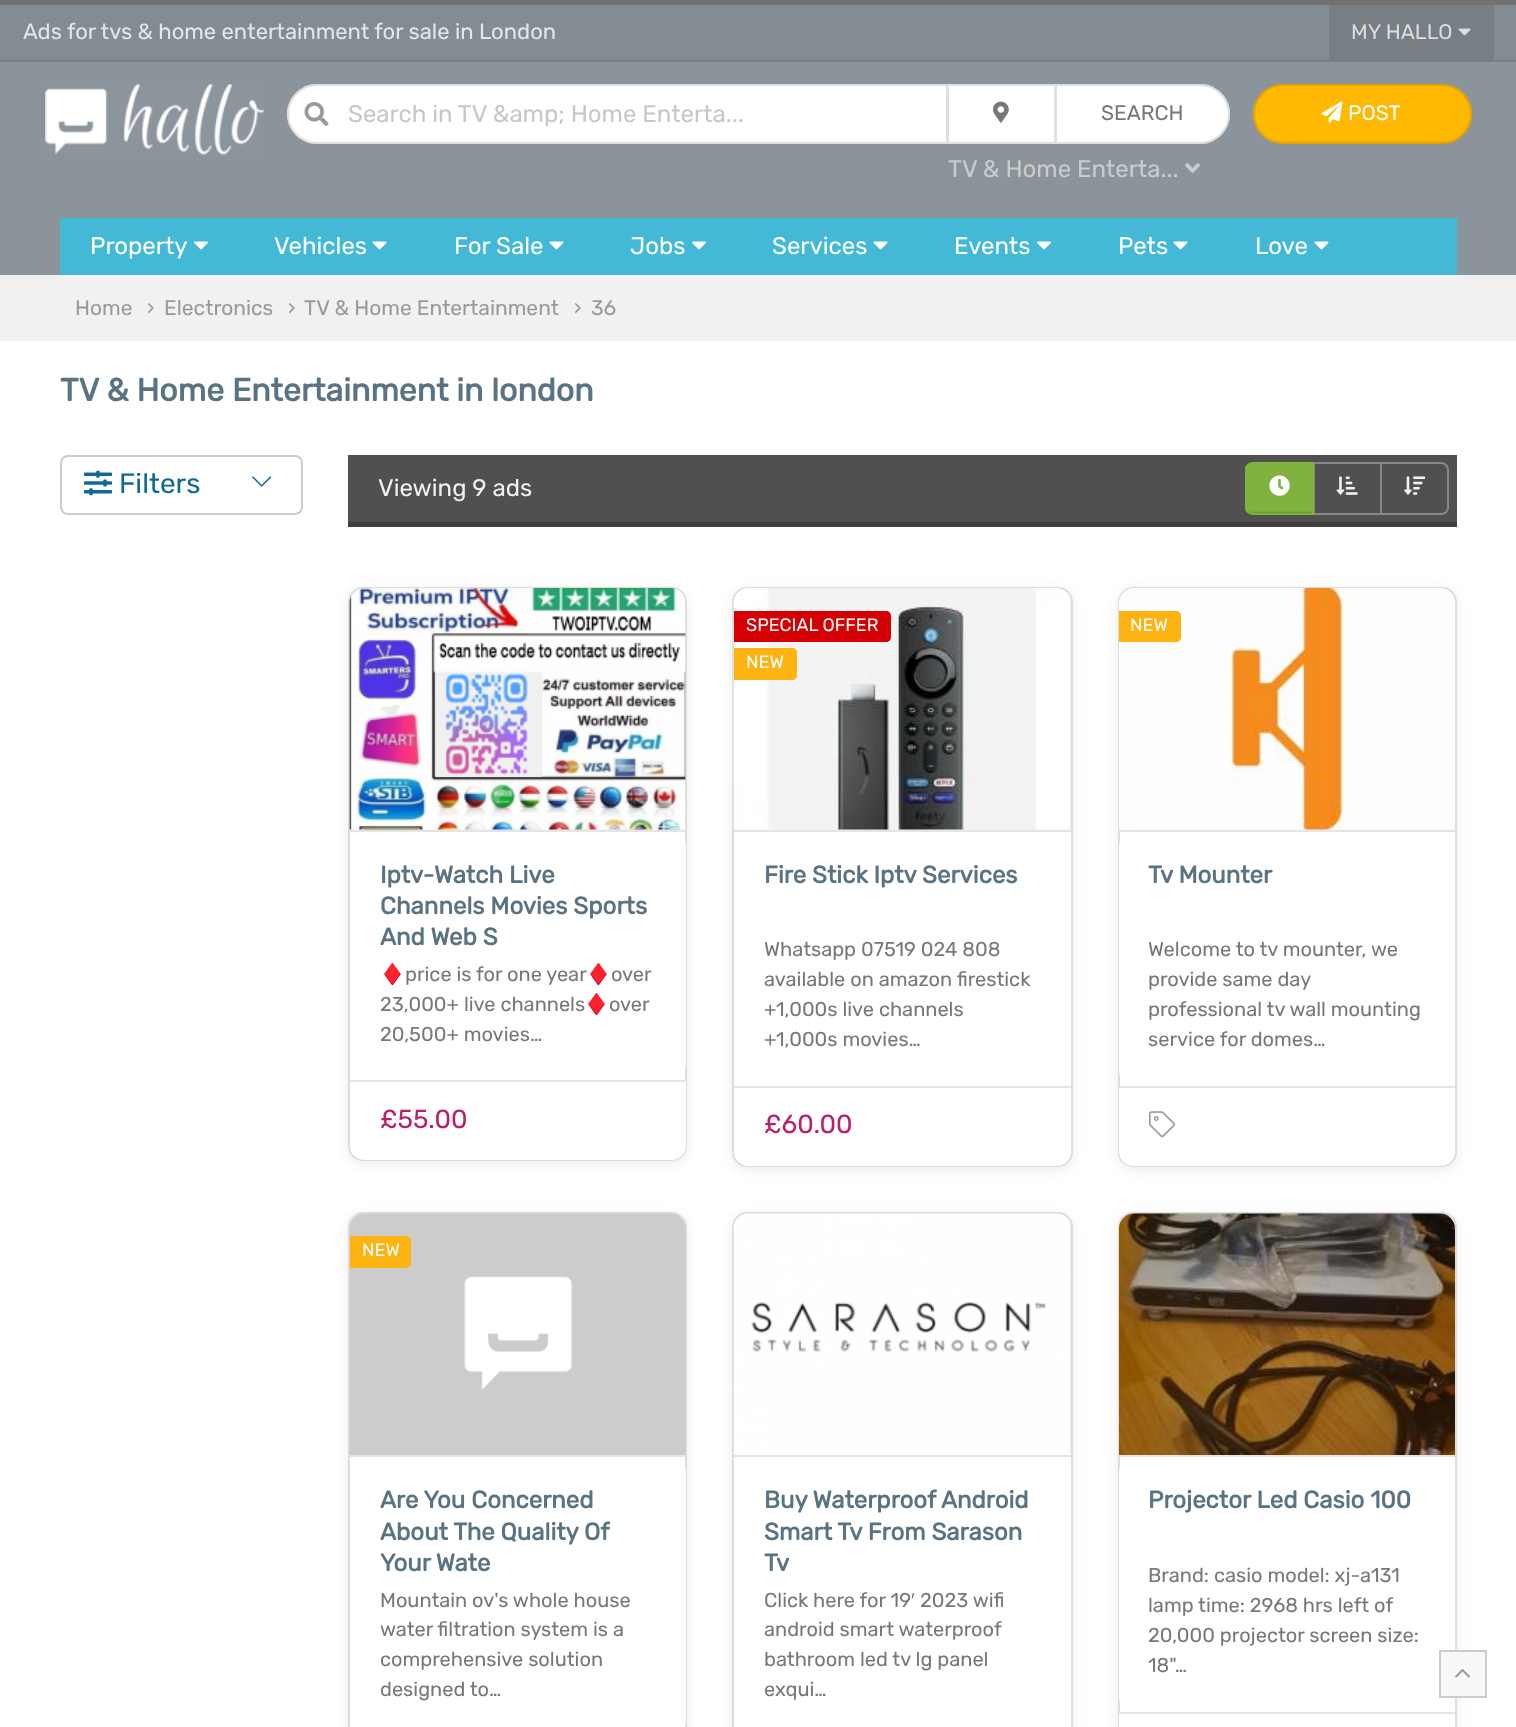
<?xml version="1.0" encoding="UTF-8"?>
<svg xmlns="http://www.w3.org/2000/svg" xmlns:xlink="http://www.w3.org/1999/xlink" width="1516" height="1727">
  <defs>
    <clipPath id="clip1"><rect x="1253" y="84" width="219" height="60" rx="30" /></clipPath>
    <linearGradient id="g1" gradientUnits="userSpaceOnUse" x1="1362" y1="85" x2="1362" y2="143"><stop offset="0.96" stop-color="#ffb900" /><stop offset="1" stop-color="#e0a001" /></linearGradient>
    <clipPath id="clip2"><path d="M 1253 462 h 61 v 53 h -61 c -4.5 0 -8 -3.5 -8 -8 v -37 c 0 -4.5 3.5 -8 8 -8 z" /></clipPath>
    <linearGradient id="g2" gradientUnits="userSpaceOnUse" x1="1280" y1="464" x2="1280" y2="513"><stop offset="0.96" stop-color="#7fb33e" /><stop offset="1" stop-color="#669128" /></linearGradient>
  </defs>
  <rect width="100%" height="100%" fill="#ffffff" />
  <rect y="5" width="1516" height="55" fill="#848c93" />
  <rect width="1516" height="5" fill="#717171" />
  <rect y="60" width="1516" height="2" fill="#777e84" />
  <rect x="1329" y="5" width="165" height="55" fill="#777e84" />
  <image x="1458" y="28" width="13" height="8" xlink:href="image1.png" />
  <rect y="62" width="1516" height="213" fill="#8b949b" />
  <image x="45" y="84" width="219" height="71" xlink:href="image2.png" />
  <path d="M 317 84 h 631 v 60 h -631 c -16.5 0 -30 -13.5 -30 -30 c 0 -16.5 13.5 -30 30 -30 z" fill="#ffffff" />
  <path d="M 317 85 h 630 v 58 h -630 c -16 0 -29 -13 -29 -29 c 0 -16 13 -29 29 -29 z" fill="none" stroke="#c0c0c0" stroke-opacity="0.5" stroke-width="2" />
  <image x="304" y="102" width="25" height="24" xlink:href="image3.png" />
  <path d="M 1055 84 h 145 c 16.5 0 30 13.5 30 30 c 0 16.5 -13.5 30 -30 30 h -145 z" fill="#ffffff" />
  <path d="M 1056 85 h 144 c 16 0 29 13 29 29 c 0 16 -13 29 -29 29 h -144 z" fill="none" stroke="#c0c0c0" stroke-opacity="0.5" stroke-width="2" />
  <rect x="948" y="85" width="107" height="58" fill="#ffffff" stroke="#e0e0e0" stroke-width="2" />
  <image x="993" y="101" width="16" height="22" xlink:href="image4.png" />
  <image x="1185" y="163" width="15" height="10" xlink:href="image5.png" />
  <g clip-path="url(#clip1)">
    <rect x="1253" y="86" width="219" height="57" fill="url(#g1)" />
  </g>
  <rect x="1254" y="85" width="217" height="58" rx="29" fill="none" stroke="#e4a200" stroke-width="2" />
  <image x="1321" y="101" width="22" height="22" xlink:href="image6.png" />
  <rect x="60" y="218" width="1397" height="57" fill="#43b9d6" />
  <image x="194" y="241" width="14" height="9" xlink:href="image7.png" />
  <image x="372" y="241" width="15" height="9" xlink:href="image8.png" />
  <image x="549" y="241" width="15" height="9" xlink:href="image8.png" />
  <image x="692" y="241" width="14" height="9" xlink:href="image7.png" />
  <image x="873" y="241" width="15" height="9" xlink:href="image8.png" />
  <image x="1037" y="241" width="14" height="9" xlink:href="image7.png" />
  <image x="1173" y="241" width="15" height="9" xlink:href="image8.png" />
  <image x="1314" y="241" width="15" height="9" xlink:href="image8.png" />
  <rect y="275" width="1516" height="66" fill="#f1f1f1" />
  <rect x="61" y="456" width="241" height="58" rx="7" fill="none" stroke="#cccccc" stroke-width="2" />
  <image x="84" y="470" width="28" height="26" xlink:href="image9.png" />
  <image x="252" y="476" width="20" height="11" xlink:href="image10.png" />
  <rect x="348" y="455" width="1109" height="67" fill="#505050" />
  <rect x="348" y="522" width="1109" height="5" fill="#404040" />
  <g clip-path="url(#clip2)">
    <rect x="1245" y="464" width="67" height="49" fill="url(#g2)" />
  </g>
  <rect x="1314" y="463" width="67" height="51" fill="none" stroke="#888888" stroke-width="2" />
  <path d="M 1253 463 h 60 v 51 h -60 c -4 0 -7 -3 -7 -7 v -37 c 0 -4 3 -7 7 -7 z" fill="none" stroke="#7fb33e" stroke-width="2" />
  <image x="1269" y="475" width="21" height="21" xlink:href="image11.png" />
  <image x="1336" y="476" width="22" height="19" xlink:href="image12.png" />
  <path d="M 1381 463 h 60 c 4 0 7 3 7 7 v 37 c 0 4 -3 7 -7 7 h -60 z" fill="#505050" stroke="#888888" stroke-width="2" />
  <image x="1404" y="476" width="22" height="19" xlink:href="image13.png" />
  <rect x="348" y="590" width="339" height="574" rx="15" fill="#000000" fill-opacity="0.08" filter="blur(6px)" />
  <rect x="349" y="588" width="337" height="572" rx="14" fill="#ffffff" stroke="#dddddd" stroke-width="2" />
  <path d="M 365 588 h 306 c 8.5 0 15 6.5 15 15 v 228 h -336 v -228 c 0 -8.5 6.5 -15 15 -15 z" fill="#c0c0c0" fill-opacity="0.2" />
  <rect x="350" y="831" width="336" height="249" rx="15" fill="#ffffff" />
  <rect x="350" y="830" width="336" height="2" fill="#e5e5e5" />
  <image x="349" y="588" width="337" height="242" xlink:href="image14.png" />
  <path d="M 350 1080 h 336 v 65 c 0 8.5 -6.5 15 -15 15 h -306 c -8.5 0 -15 -6.5 -15 -15 z" fill="#ffffff" />
  <rect x="350" y="1080" width="336" height="2" fill="#e5e5e5" />
  <rect x="732" y="590" width="341" height="580" rx="15" fill="#000000" fill-opacity="0.08" filter="blur(6px)" />
  <rect x="733" y="588" width="339" height="578" rx="14" fill="#ffffff" stroke="#dddddd" stroke-width="2" />
  <path d="M 749 588 h 307 c 8.5 0 15 6.5 15 15 v 228 h -337 v -228 c 0 -8.5 6.5 -15 15 -15 z" fill="#c0c0c0" fill-opacity="0.2" />
  <rect x="734" y="830" width="337" height="2" fill="#e5e5e5" />
  <image x="733" y="588" width="337" height="242" xlink:href="image15.png" />
  <path d="M 734 611 h 152 c 3 0 5 2 5 5 v 21 c 0 3 -2 5 -5 5 h -152 z" fill="#d50003" />
  <path d="M 734 648 h 58 c 3 0 5 2 5 5 v 22 c 0 3 -2 5 -5 5 h -58 z" fill="#fdb311" />
  <path d="M 734 1086 h 337 v 65 c 0 8.5 -6.5 15 -15 15 h -307 c -8.5 0 -15 -6.5 -15 -15 z" fill="#ffffff" />
  <rect x="734" y="1086" width="337" height="2" fill="#e5e5e5" />
  <rect x="1118" y="590" width="339" height="580" rx="15" fill="#000000" fill-opacity="0.08" filter="blur(6px)" />
  <rect x="1119" y="588" width="337" height="578" rx="14" fill="#ffffff" stroke="#dddddd" stroke-width="2" />
  <path d="M 1134 588 h 306 c 8.5 0 15 6.5 15 15 v 228 h -336 v -228 c 0 -8.5 6.5 -15 15 -15 z" fill="#c0c0c0" fill-opacity="0.2" />
  <rect x="1119" y="831" width="336" height="255" rx="15" fill="#ffffff" />
  <rect x="1119" y="830" width="336" height="2" fill="#e5e5e5" />
  <image x="1119" y="588" width="336" height="242" xlink:href="image16.png" />
  <path d="M 1119 611 h 57 c 3 0 5 2 5 5 v 21 c 0 3 -2 5 -5 5 h -57 z" fill="#fdb311" />
  <path d="M 1119 1086 h 336 v 65 c 0 8.5 -6.5 15 -15 15 h -306 c -8.5 0 -15 -6.5 -15 -15 z" fill="#ffffff" />
  <rect x="1119" y="1086" width="336" height="2" fill="#e5e5e5" />
  <image x="1149" y="1111" width="26" height="27" xlink:href="image17.png" />
  <rect x="348" y="1215" width="339" height="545" rx="15" fill="#000000" fill-opacity="0.08" filter="blur(6px)" />
  <rect x="349" y="1213" width="337" height="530" rx="14" fill="#ffffff" stroke="#dddddd" stroke-width="2" />
  <path d="M 365 1214 h 306 c 8.5 0 15 6.5 15 15 v 228 h -336 v -228 c 0 -8.5 6.5 -15 15 -15 z" fill="#c0c0c0" fill-opacity="0.2" />
  <rect x="350" y="1455" width="336" height="2" fill="#e5e5e5" />
  <image x="349" y="1213" width="337" height="242" xlink:href="image18.png" />
  <path d="M 350 1236 h 56 c 3 0 5 2 5 5 v 22 c 0 3 -2 5 -5 5 h -56 z" fill="#fdb311" />
  <rect x="350" y="1457" width="336" height="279" rx="15" fill="#ffffff" />
  <rect x="732" y="1215" width="341" height="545" rx="15" fill="#000000" fill-opacity="0.08" filter="blur(6px)" />
  <rect x="733" y="1213" width="339" height="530" rx="14" fill="#ffffff" stroke="#dddddd" stroke-width="2" />
  <path d="M 749 1214 h 307 c 8.5 0 15 6.5 15 15 v 228 h -337 v -228 c 0 -8.5 6.5 -15 15 -15 z" fill="#c0c0c0" fill-opacity="0.2" />
  <rect x="734" y="1455" width="337" height="2" fill="#e5e5e5" />
  <image x="733" y="1213" width="337" height="242" xlink:href="image19.png" />
  <rect x="1118" y="1215" width="339" height="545" rx="15" fill="#000000" fill-opacity="0.08" filter="blur(6px)" />
  <rect x="1119" y="1213" width="337" height="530" rx="14" fill="#ffffff" stroke="#dddddd" stroke-width="2" />
  <rect x="1119" y="1455" width="336" height="2" fill="#e5e5e5" />
  <image x="1119" y="1213" width="336" height="242" xlink:href="image20.png" />
  <rect x="1119" y="1457" width="336" height="255" rx="15" fill="#ffffff" />
  <rect x="1119" y="1714" width="1" height="13" fill="#ffffff" />
  <rect x="1119" y="1712" width="336" height="2" fill="#e5e5e5" />
  <rect x="1440" y="1651" width="46" height="46" fill="#f8f8f8" stroke="#cccccc" stroke-width="2" />
  <image x="1455" y="1668" width="15" height="10" xlink:href="image21.png" />
  <text x="23" y="39" style="font-family: Rubik; font-size: 22px; font-weight: 300; fill: #e5e5e5">Ads for tvs &amp; home entertainment for sale in London</text>
  <text x="1351" y="39" style="font-family: Rubik; font-size: 21px; font-weight: 300; fill: #dddddd">MY HALLO</text>
  <text x="348" y="122" style="font-family: Rubik; font-size: 24px; font-weight: 300; fill: #c3c8cb">Search in TV &amp;amp; Home Enterta...</text>
  <text x="1101" y="120" style="font-family: Rubik; font-size: 21px; font-weight: 300; fill: #777777">SEARCH</text>
  <text x="948" y="177" style="font-family: Rubik; font-size: 24px; font-weight: 300; fill: #cccccc">TV &amp; Home Enterta...</text>
  <text x="1348" y="120" style="font-family: Rubik; font-size: 21px; font-weight: 300; fill: #ffffff">POST</text>
  <text x="90" y="254" style="font-family: Rubik; font-size: 24px; font-weight: 300; fill: #ffffff">Property</text>
  <text x="274" y="254" style="font-family: Rubik; font-size: 24px; font-weight: 300; fill: #ffffff">Vehicles</text>
  <text x="454" y="254" style="font-family: Rubik; font-size: 24px; font-weight: 300; fill: #ffffff">For Sale</text>
  <text x="630" y="254" style="font-family: Rubik; font-size: 24px; font-weight: 300; fill: #ffffff">Jobs</text>
  <text x="772" y="254" style="font-family: Rubik; font-size: 24px; font-weight: 300; fill: #ffffff">Services</text>
  <text x="954" y="254" style="font-family: Rubik; font-size: 24px; font-weight: 300; fill: #ffffff">Events</text>
  <text x="1118" y="254" style="font-family: Rubik; font-size: 24px; font-weight: 300; fill: #ffffff">Pets</text>
  <text x="1255" y="254" style="font-family: Rubik; font-size: 24px; font-weight: 300; fill: #ffffff">Love</text>
  <text x="75" y="315" style="font-family: Rubik; font-size: 21px; font-weight: 300; fill: #999999">Home</text>
  <text x="147" y="315" style="font-family: Rubik; font-size: 21px; font-weight: 300; fill: #999999">›</text>
  <text x="164" y="315" style="font-family: Rubik; font-size: 21px; font-weight: 300; fill: #999999">Electronics</text>
  <text x="288" y="315" style="font-family: Rubik; font-size: 21px; font-weight: 300; fill: #999999">›</text>
  <text x="304" y="315" style="font-family: Rubik; font-size: 21px; font-weight: 300; fill: #999999">TV &amp; Home Entertainment</text>
  <text x="574" y="315" style="font-family: Rubik; font-size: 21px; font-weight: 300; fill: #999999">›</text>
  <text x="591" y="315" style="font-family: Rubik; font-size: 21px; font-weight: 300; fill: #999999">36</text>
  <text x="60" y="401" style="font-family: Rubik; font-size: 32px; font-weight: bold; fill: #5a7382">TV &amp; Home Entertainment in london</text>
  <text x="119" y="493" style="font-family: Rubik; font-size: 28px; font-weight: 300; fill: #0e6993">Filters</text>
  <text x="378" y="496" style="font-family: Rubik; font-size: 24px; font-weight: 300; fill: #f1f1f1">Viewing 9 ads</text>
  <text x="380" y="883" style="font-family: Rubik; font-size: 24px; font-weight: bold; fill: #5a7382">Iptv-Watch Live</text>
  <text x="380" y="914" style="font-family: Rubik; font-size: 24px; font-weight: bold; fill: #5a7382">Channels Movies Sports</text>
  <text x="380" y="945" style="font-family: Rubik; font-size: 24px; font-weight: bold; fill: #5a7382">And Web S</text>
  <text x="380" y="981" style="font-family: Noto Color Emoji; font-size: 20px; fill: #777777">♦️</text>
  <text x="405" y="981" style="font-family: Rubik; font-size: 20px; font-weight: 300; fill: #777777">price is for one year</text>
  <text x="586" y="981" style="font-family: Noto Color Emoji; font-size: 20px; fill: #777777">♦️</text>
  <text x="611" y="981" style="font-family: Rubik; font-size: 20px; font-weight: 300; fill: #777777">over</text>
  <text x="380" y="1011" style="font-family: Rubik; font-size: 20px; font-weight: 300; fill: #777777">23,000+ live channels</text>
  <text x="584" y="1011" style="font-family: Noto Color Emoji; font-size: 20px; fill: #777777">♦️</text>
  <text x="609" y="1011" style="font-family: Rubik; font-size: 20px; font-weight: 300; fill: #777777">over</text>
  <text x="380" y="1041" style="font-family: Rubik; font-size: 20px; font-weight: 300; fill: #777777">20,500+ movies…</text>
  <text x="380" y="1128" style="font-family: Rubik; font-size: 26px; font-weight: 300; fill: #b91e67">£55.00</text>
  <text x="746" y="631" style="font-family: Rubik; font-size: 18px; font-weight: 300; fill: #ffffff">SPECIAL OFFER</text>
  <text x="746" y="668" style="font-family: Rubik; font-size: 18px; font-weight: 300; fill: #ffffff">NEW</text>
  <text x="764" y="883" style="font-family: Rubik; font-size: 24px; font-weight: bold; fill: #5a7382">Fire Stick Iptv Services</text>
  <text x="764" y="956" style="font-family: Rubik; font-size: 20px; font-weight: 300; fill: #777777">Whatsapp 07519 024 808</text>
  <text x="764" y="986" style="font-family: Rubik; font-size: 20px; font-weight: 300; fill: #777777">available on amazon firestick</text>
  <text x="764" y="1016" style="font-family: Rubik; font-size: 20px; font-weight: 300; fill: #777777">+1,000s live channels</text>
  <text x="764" y="1046" style="font-family: Rubik; font-size: 20px; font-weight: 300; fill: #777777">+1,000s movies…</text>
  <text x="764" y="1133" style="font-family: Rubik; font-size: 26px; font-weight: 300; fill: #b91e67">£60.00</text>
  <text x="1130" y="631" style="font-family: Rubik; font-size: 18px; font-weight: 300; fill: #ffffff">NEW</text>
  <text x="1148" y="883" style="font-family: Rubik; font-size: 24px; font-weight: bold; fill: #5a7382">Tv Mounter</text>
  <text x="1148" y="956" style="font-family: Rubik; font-size: 20px; font-weight: 300; fill: #777777">Welcome to tv mounter, we</text>
  <text x="1148" y="986" style="font-family: Rubik; font-size: 20px; font-weight: 300; fill: #777777">provide same day</text>
  <text x="1148" y="1016" style="font-family: Rubik; font-size: 20px; font-weight: 300; fill: #777777">professional tv wall mounting</text>
  <text x="1148" y="1046" style="font-family: Rubik; font-size: 20px; font-weight: 300; fill: #777777">service for domes…</text>
  <text x="362" y="1256" style="font-family: Rubik; font-size: 18px; font-weight: 300; fill: #ffffff">NEW</text>
  <text x="380" y="1508" style="font-family: Rubik; font-size: 24px; font-weight: bold; fill: #5a7382">Are You Concerned</text>
  <text x="380" y="1540" style="font-family: Rubik; font-size: 24px; font-weight: bold; fill: #5a7382">About The Quality Of</text>
  <text x="380" y="1571" style="font-family: Rubik; font-size: 24px; font-weight: bold; fill: #5a7382">Your Wate</text>
  <text x="380" y="1607" style="font-family: Rubik; font-size: 20px; font-weight: 300; fill: #777777">Mountain ov's whole house</text>
  <text x="380" y="1636" style="font-family: Rubik; font-size: 20px; font-weight: 300; fill: #777777">water filtration system is a</text>
  <text x="380" y="1666" style="font-family: Rubik; font-size: 20px; font-weight: 300; fill: #777777">comprehensive solution</text>
  <text x="380" y="1696" style="font-family: Rubik; font-size: 20px; font-weight: 300; fill: #777777">designed to…</text>
  <text x="764" y="1508" style="font-family: Rubik; font-size: 24px; font-weight: bold; fill: #5a7382">Buy Waterproof Android</text>
  <text x="764" y="1540" style="font-family: Rubik; font-size: 24px; font-weight: bold; fill: #5a7382">Smart Tv From Sarason</text>
  <text x="764" y="1571" style="font-family: Rubik; font-size: 24px; font-weight: bold; fill: #5a7382">Tv</text>
  <text x="764" y="1607" style="font-family: Rubik; font-size: 20px; font-weight: 300; fill: #777777">Click here for 19</text>
  <text x="911" y="1607" style="font-family: Liberation Sans; font-size: 20px; fill: #777777">′</text>
  <text x="920" y="1607" style="font-family: Rubik; font-size: 20px; font-weight: 300; fill: #777777">2023 wifi</text>
  <text x="764" y="1636" style="font-family: Rubik; font-size: 20px; font-weight: 300; fill: #777777">android smart waterproof</text>
  <text x="764" y="1666" style="font-family: Rubik; font-size: 20px; font-weight: 300; fill: #777777">bathroom led tv lg panel</text>
  <text x="764" y="1696" style="font-family: Rubik; font-size: 20px; font-weight: 300; fill: #777777">exqui…</text>
  <text x="1148" y="1508" style="font-family: Rubik; font-size: 24px; font-weight: bold; fill: #5a7382">Projector Led Casio 100</text>
  <text x="1148" y="1582" style="font-family: Rubik; font-size: 20px; font-weight: 300; fill: #777777">Brand: casio model: xj-a131</text>
  <text x="1148" y="1612" style="font-family: Rubik; font-size: 20px; font-weight: 300; fill: #777777">lamp time: 2968 hrs left of</text>
  <text x="1148" y="1642" style="font-family: Rubik; font-size: 20px; font-weight: 300; fill: #777777">20,000 projector screen size:</text>
  <text x="1148" y="1672" style="font-family: Rubik; font-size: 20px; font-weight: 300; fill: #777777">18"…</text>
</svg>
